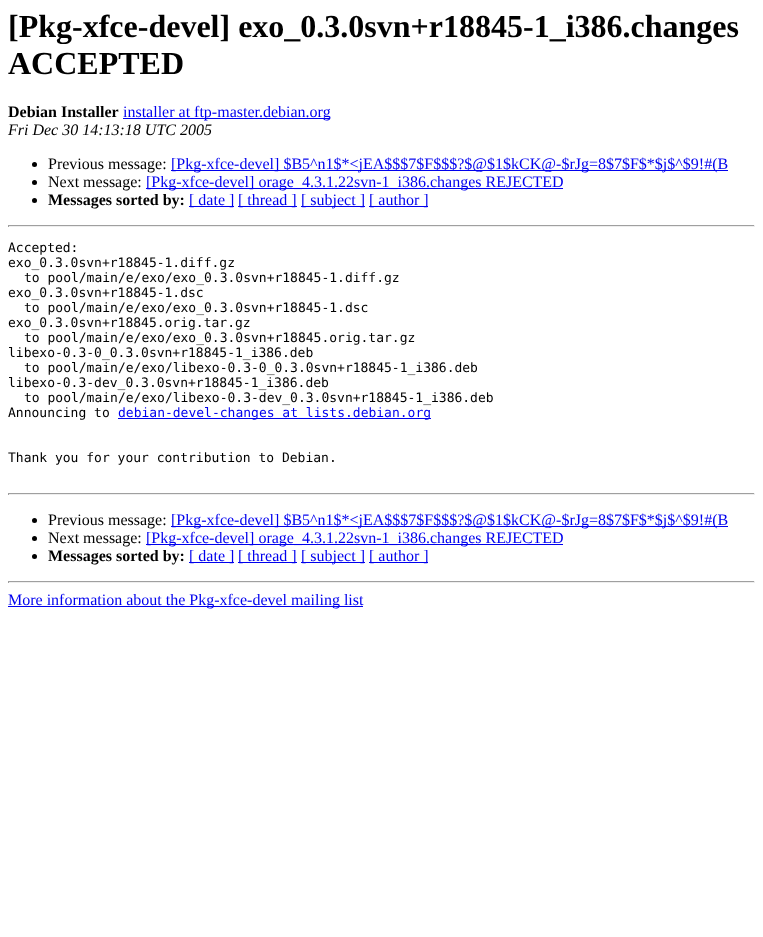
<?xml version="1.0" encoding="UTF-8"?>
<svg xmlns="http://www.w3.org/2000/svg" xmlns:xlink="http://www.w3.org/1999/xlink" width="763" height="937">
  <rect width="100%" height="100%" fill="#ffffff" />
  <rect x="123" y="118" width="207" height="1" fill="#0000ee" />
  <circle cx="34.5" cy="164.5" r="2.5" fill="#000000" />
  <rect x="171" y="170" width="557" height="1" fill="#0000ee" />
  <circle cx="34.5" cy="182.5" r="2.5" fill="#000000" />
  <rect x="146" y="188" width="417" height="1" fill="#0000ee" />
  <circle cx="34.5" cy="200.5" r="2.5" fill="#000000" />
  <rect x="189" y="206" width="45" height="1" fill="#0000ee" />
  <rect x="238" y="206" width="59" height="1" fill="#0000ee" />
  <rect x="301" y="206" width="64" height="1" fill="#0000ee" />
  <rect x="369" y="206" width="59" height="1" fill="#0000ee" />
  <rect x="8" y="225" width="747" height="1" fill="#9f9f9f" />
  <rect x="754" y="225" width="1" height="2" fill="#eeeeee" />
  <rect x="8" y="226" width="747" height="1" fill="#eeeeee" />
  <rect x="8" y="225" width="1" height="2" fill="#9f9f9f" />
  <rect x="118" y="418" width="313" height="1" fill="#0000ee" />
  <rect x="8" y="493" width="747" height="1" fill="#9f9f9f" />
  <rect x="754" y="493" width="1" height="2" fill="#eeeeee" />
  <rect x="8" y="494" width="747" height="1" fill="#eeeeee" />
  <rect x="8" y="493" width="1" height="2" fill="#9f9f9f" />
  <circle cx="34.5" cy="520.5" r="2.5" fill="#000000" />
  <rect x="171" y="526" width="557" height="1" fill="#0000ee" />
  <circle cx="34.5" cy="538.5" r="2.5" fill="#000000" />
  <rect x="146" y="544" width="417" height="1" fill="#0000ee" />
  <circle cx="34.5" cy="556.5" r="2.5" fill="#000000" />
  <rect x="189" y="562" width="45" height="1" fill="#0000ee" />
  <rect x="238" y="562" width="59" height="1" fill="#0000ee" />
  <rect x="301" y="562" width="64" height="1" fill="#0000ee" />
  <rect x="369" y="562" width="59" height="1" fill="#0000ee" />
  <rect x="8" y="581" width="747" height="1" fill="#9f9f9f" />
  <rect x="754" y="581" width="1" height="2" fill="#eeeeee" />
  <rect x="8" y="582" width="747" height="1" fill="#eeeeee" />
  <rect x="8" y="581" width="1" height="2" fill="#9f9f9f" />
  <rect x="8" y="606" width="355" height="1" fill="#0000ee" />
  <text x="8" y="37" style="font-family: Liberation Serif; font-size: 32px; font-weight: bold; fill: #000000">[Pkg-xfce-devel] exo_0.3.0svn+r18845-1_i386.changes</text>
  <text x="8" y="74" style="font-family: Liberation Serif; font-size: 32px; font-weight: bold; fill: #000000">ACCEPTED</text>
  <text x="8" y="117" style="font-family: Liberation Serif; font-size: 16px; font-weight: bold; fill: #000000">Debian Installer</text>
  <text x="123" y="117" style="font-family: Liberation Serif; font-size: 16px; fill: #0000ee">installer at ftp-master.debian.org</text>
  <text x="8" y="135" style="font-family: Liberation Serif; font-size: 16px; font-style: italic; fill: #000000">Fri Dec 30 14:13:18 UTC 2005</text>
  <text x="48" y="169" style="font-family: Liberation Serif; font-size: 16px; fill: #000000">Previous message:</text>
  <text x="171" y="169" style="font-family: Liberation Serif; font-size: 16px; fill: #0000ee">[Pkg-xfce-devel] $B5^n1$*&lt;jEA$$$7$F$$$?$@$1$kCK@-$rJg=8$7$F$*$j$^$9!#(B</text>
  <text x="48" y="187" style="font-family: Liberation Serif; font-size: 16px; fill: #000000">Next message:</text>
  <text x="146" y="187" style="font-family: Liberation Serif; font-size: 16px; fill: #0000ee">[Pkg-xfce-devel] orage_4.3.1.22svn-1_i386.changes REJECTED</text>
  <text x="48" y="205" style="font-family: Liberation Serif; font-size: 16px; font-weight: bold; fill: #000000">Messages sorted by:</text>
  <text x="189" y="205" style="font-family: Liberation Serif; font-size: 16px; fill: #0000ee">[ date ]</text>
  <text x="238" y="205" style="font-family: Liberation Serif; font-size: 16px; fill: #0000ee">[ thread ]</text>
  <text x="301" y="205" style="font-family: Liberation Serif; font-size: 16px; fill: #0000ee">[ subject ]</text>
  <text x="369" y="205" style="font-family: Liberation Serif; font-size: 16px; fill: #0000ee">[ author ]</text>
  <text x="8" y="252" style="font-family: DejaVu Sans Mono; font-size: 13px; fill: #000000">Accepted:</text>
  <text x="8" y="267" style="font-family: DejaVu Sans Mono; font-size: 13px; fill: #000000">exo_0.3.0svn+r18845-1.diff.gz</text>
  <text x="24" y="282" style="font-family: DejaVu Sans Mono; font-size: 13px; fill: #000000">to pool/main/e/exo/exo_0.3.0svn+r18845-1.diff.gz</text>
  <text x="8" y="297" style="font-family: DejaVu Sans Mono; font-size: 13px; fill: #000000">exo_0.3.0svn+r18845-1.dsc</text>
  <text x="24" y="312" style="font-family: DejaVu Sans Mono; font-size: 13px; fill: #000000">to pool/main/e/exo/exo_0.3.0svn+r18845-1.dsc</text>
  <text x="8" y="327" style="font-family: DejaVu Sans Mono; font-size: 13px; fill: #000000">exo_0.3.0svn+r18845.orig.tar.gz</text>
  <text x="24" y="342" style="font-family: DejaVu Sans Mono; font-size: 13px; fill: #000000">to pool/main/e/exo/exo_0.3.0svn+r18845.orig.tar.gz</text>
  <text x="8" y="357" style="font-family: DejaVu Sans Mono; font-size: 13px; fill: #000000">libexo-0.3-0_0.3.0svn+r18845-1_i386.deb</text>
  <text x="24" y="372" style="font-family: DejaVu Sans Mono; font-size: 13px; fill: #000000">to pool/main/e/exo/libexo-0.3-0_0.3.0svn+r18845-1_i386.deb</text>
  <text x="8" y="387" style="font-family: DejaVu Sans Mono; font-size: 13px; fill: #000000">libexo-0.3-dev_0.3.0svn+r18845-1_i386.deb</text>
  <text x="24" y="402" style="font-family: DejaVu Sans Mono; font-size: 13px; fill: #000000">to pool/main/e/exo/libexo-0.3-dev_0.3.0svn+r18845-1_i386.deb</text>
  <text x="8" y="417" style="font-family: DejaVu Sans Mono; font-size: 13px; fill: #000000">Announcing to</text>
  <text x="118" y="417" style="font-family: DejaVu Sans Mono; font-size: 13px; fill: #0000ee">debian-devel-changes at lists.debian.org</text>
  <text x="8" y="462" style="font-family: DejaVu Sans Mono; font-size: 13px; fill: #000000">Thank you for your contribution to Debian.</text>
  <text x="48" y="525" style="font-family: Liberation Serif; font-size: 16px; fill: #000000">Previous message:</text>
  <text x="171" y="525" style="font-family: Liberation Serif; font-size: 16px; fill: #0000ee">[Pkg-xfce-devel] $B5^n1$*&lt;jEA$$$7$F$$$?$@$1$kCK@-$rJg=8$7$F$*$j$^$9!#(B</text>
  <text x="48" y="543" style="font-family: Liberation Serif; font-size: 16px; fill: #000000">Next message:</text>
  <text x="146" y="543" style="font-family: Liberation Serif; font-size: 16px; fill: #0000ee">[Pkg-xfce-devel] orage_4.3.1.22svn-1_i386.changes REJECTED</text>
  <text x="48" y="561" style="font-family: Liberation Serif; font-size: 16px; font-weight: bold; fill: #000000">Messages sorted by:</text>
  <text x="189" y="561" style="font-family: Liberation Serif; font-size: 16px; fill: #0000ee">[ date ]</text>
  <text x="238" y="561" style="font-family: Liberation Serif; font-size: 16px; fill: #0000ee">[ thread ]</text>
  <text x="301" y="561" style="font-family: Liberation Serif; font-size: 16px; fill: #0000ee">[ subject ]</text>
  <text x="369" y="561" style="font-family: Liberation Serif; font-size: 16px; fill: #0000ee">[ author ]</text>
  <text x="8" y="605" style="font-family: Liberation Serif; font-size: 16px; fill: #0000ee">More information about the Pkg-xfce-devel mailing list</text>
</svg>
